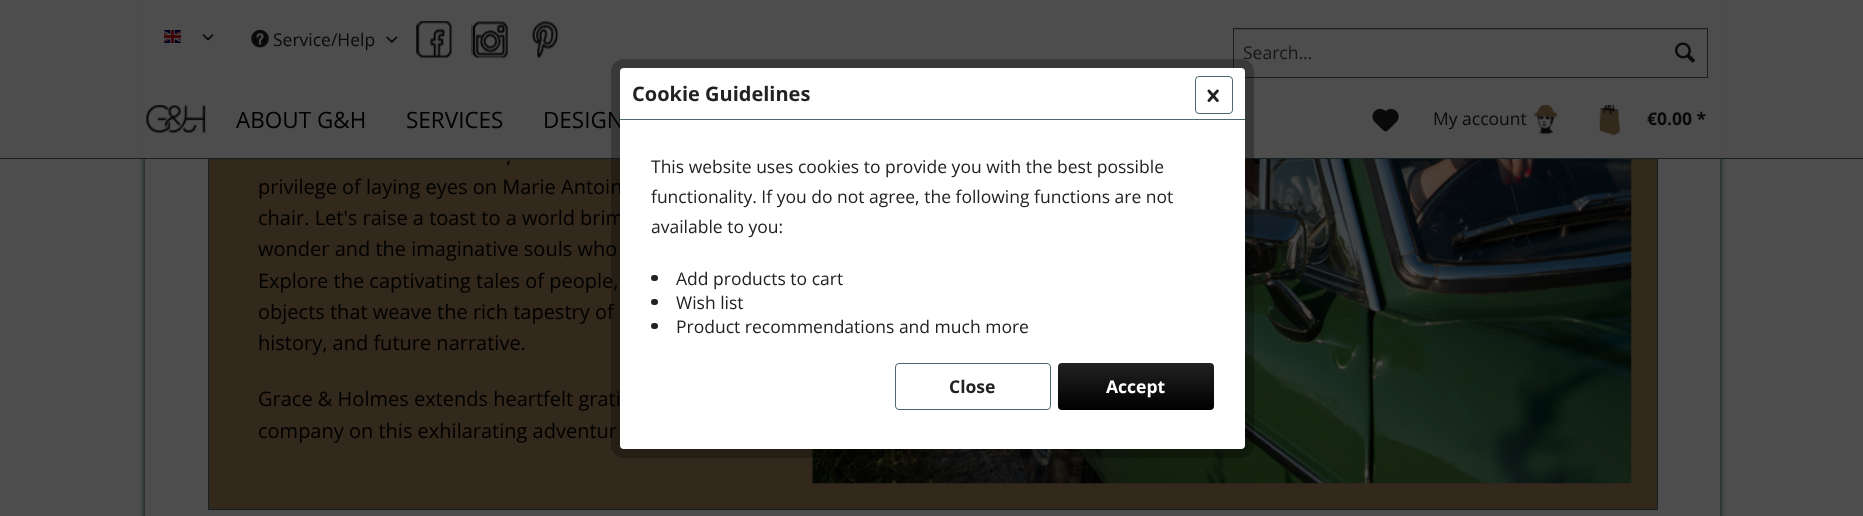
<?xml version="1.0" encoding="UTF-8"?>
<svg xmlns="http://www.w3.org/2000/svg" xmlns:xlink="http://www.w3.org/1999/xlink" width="1863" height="516">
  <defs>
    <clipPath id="clip1"><path d="M 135 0 h 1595 v 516 h -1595 z m 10 -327 h 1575 v 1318 h -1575 z" clip-rule="evenodd" /></clipPath>
    <linearGradient id="g1" gradientUnits="userSpaceOnUse" x1="1136" y1="363" x2="1136" y2="410"><stop offset="0" stop-color="#222222" /><stop offset="1" stop-color="#000000" /></linearGradient>
  </defs>
  <rect width="100%" height="100%" fill="#4d4d4d" />
  <g clip-path="url(#clip1)">
    <rect x="144" y="-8" width="1577" height="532" fill="#162022" filter="blur(2.5px)" />
  </g>
  <rect x="209" y="159" width="1448" height="350" fill="#32281b" />
  <rect x="208.5" y="-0.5" width="1449" height="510" fill="none" stroke="#162022" />
  <rect x="140" width="1585" height="158" fill="#4d4d4d" />
  <image x="164" y="30" width="17" height="13" xlink:href="image1.png" />
  <image x="202" y="34" width="12" height="7" xlink:href="image2.png" />
  <image x="251" y="29" width="18" height="19" xlink:href="image3.png" />
  <image x="386" y="36" width="12" height="7" xlink:href="image4.png" />
  <image x="416" y="21" width="36" height="38" xlink:href="image5.png" />
  <image x="471" y="21" width="37" height="38" xlink:href="image6.png" />
  <image x="532" y="21" width="27" height="38" xlink:href="image7.png" />
  <rect x="1234" y="29" width="472" height="1" fill="#414144" />
  <rect x="1233.5" y="28.5" width="474" height="49" fill="none" stroke="#162022" />
  <image x="1675" y="42" width="20" height="21" xlink:href="image8.png" />
  <rect y="158" width="1863" height="1" fill="#162022" />
  <image x="146" y="105" width="60" height="28" xlink:href="image9.png" />
  <image x="1372" y="108" width="27" height="24" xlink:href="image10.png" />
  <image x="1533" y="105" width="25" height="30" xlink:href="image11.png" />
  <image x="1599" y="105" width="21" height="31" xlink:href="image12.png" />
  <image x="812" y="159" width="820" height="325" xlink:href="image13.png" />
  <text x="273" y="46" style="font-family: Open Sans; font-size: 17.5px; fill: #0a0a0a">Service/Help</text>
  <text x="1243" y="59" style="font-family: Open Sans; font-size: 17.5px; fill: #161616">Search...</text>
  <text x="236" y="128" style="font-family: Open Sans; font-size: 22.5px; fill: #000000">ABOUT G&amp;H</text>
  <text x="406" y="128" style="font-family: Open Sans; font-size: 22.5px; fill: #000000">SERVICES</text>
  <text x="543" y="128" style="font-family: Open Sans; font-size: 22.5px; fill: #000000">DESIGN</text>
  <text x="1433" y="125" style="font-family: Open Sans; font-size: 17.5px; fill: #0a0a0a">My account</text>
  <text x="1647" y="125" style="font-family: Open Sans; font-size: 17.5px; font-weight: bold; fill: #0a0a0a">€0.00 *</text>
  <text x="506" y="163" style="font-family: Open Sans; font-size: 20px; fill: #000000">,</text>
  <text x="258" y="194" style="font-family: Open Sans; font-size: 20px; fill: #000000">privilege of laying eyes on Marie Antoin</text>
  <text x="258" y="225" style="font-family: Open Sans; font-size: 20px; fill: #000000">chair. Let's raise a toast to a world brim</text>
  <text x="258" y="256" style="font-family: Open Sans; font-size: 20px; fill: #000000">wonder and the imaginative souls who</text>
  <text x="258" y="288" style="font-family: Open Sans; font-size: 20px; fill: #000000">Explore the captivating tales of people,</text>
  <text x="258" y="319" style="font-family: Open Sans; font-size: 20px; fill: #000000">objects that weave the rich tapestry of</text>
  <text x="258" y="350" style="font-family: Open Sans; font-size: 20px; fill: #000000">history, and future narrative.</text>
  <text x="258" y="406" style="font-family: Open Sans; font-size: 20px; fill: #000000">Grace &amp; Holmes extends heartfelt grati</text>
  <text x="258" y="438" style="font-family: Open Sans; font-size: 20px; fill: #000000">company on this exhilarating adventur</text>
  <rect x="615.5" y="63.5" width="634" height="390" rx="8.5" fill="none" stroke="#000000" stroke-opacity="0.25" stroke-width="9" />
  <rect x="620" y="68" width="625" height="381" rx="4" fill="#ffffff" />
  <rect x="620" y="119" width="625" height="1" fill="#4a6a70" />
  <text x="632" y="101" style="font-family: Open Sans; font-size: 20px; font-weight: bold; fill: #222222">Cookie Guidelines</text>
  <rect x="1195.5" y="76.5" width="37" height="37" rx="3.5" fill="none" stroke="#4a6a70" />
  <image x="1207" y="89" width="12" height="13" xlink:href="image14.png" />
  <text x="651" y="173" style="font-family: Open Sans; font-size: 17.5px; fill: #222222">This website uses cookies to provide you with the best possible</text>
  <text x="651" y="203" style="font-family: Open Sans; font-size: 17.5px; fill: #222222">functionality. If you do not agree, the following functions are not</text>
  <text x="651" y="233" style="font-family: Open Sans; font-size: 17.5px; fill: #222222">available to you:</text>
  <rect x="651" y="275" width="7" height="6" rx="3" fill="#222222" />
  <text x="676" y="285" style="font-family: Open Sans; font-size: 17.5px; fill: #222222">Add products to cart</text>
  <rect x="651" y="299" width="7" height="6" rx="3" fill="#222222" />
  <text x="676" y="309" style="font-family: Open Sans; font-size: 17.5px; fill: #222222">Wish list</text>
  <rect x="651" y="323" width="7" height="6" rx="3" fill="#222222" />
  <text x="676" y="333" style="font-family: Open Sans; font-size: 17.5px; fill: #222222">Product recommendations and much more</text>
  <rect x="895.5" y="363.5" width="155" height="46" rx="3.5" fill="none" stroke="#4a6a70" />
  <text x="949" y="393" style="font-family: Open Sans; font-size: 17.5px; font-weight: bold; fill: #222222">Close</text>
  <rect x="1058" y="363" width="156" height="47" rx="4" fill="url(#g1)" />
  <text x="1106" y="393" style="font-family: Open Sans; font-size: 17.5px; font-weight: bold; fill: #ffffff">Accept</text>
</svg>
